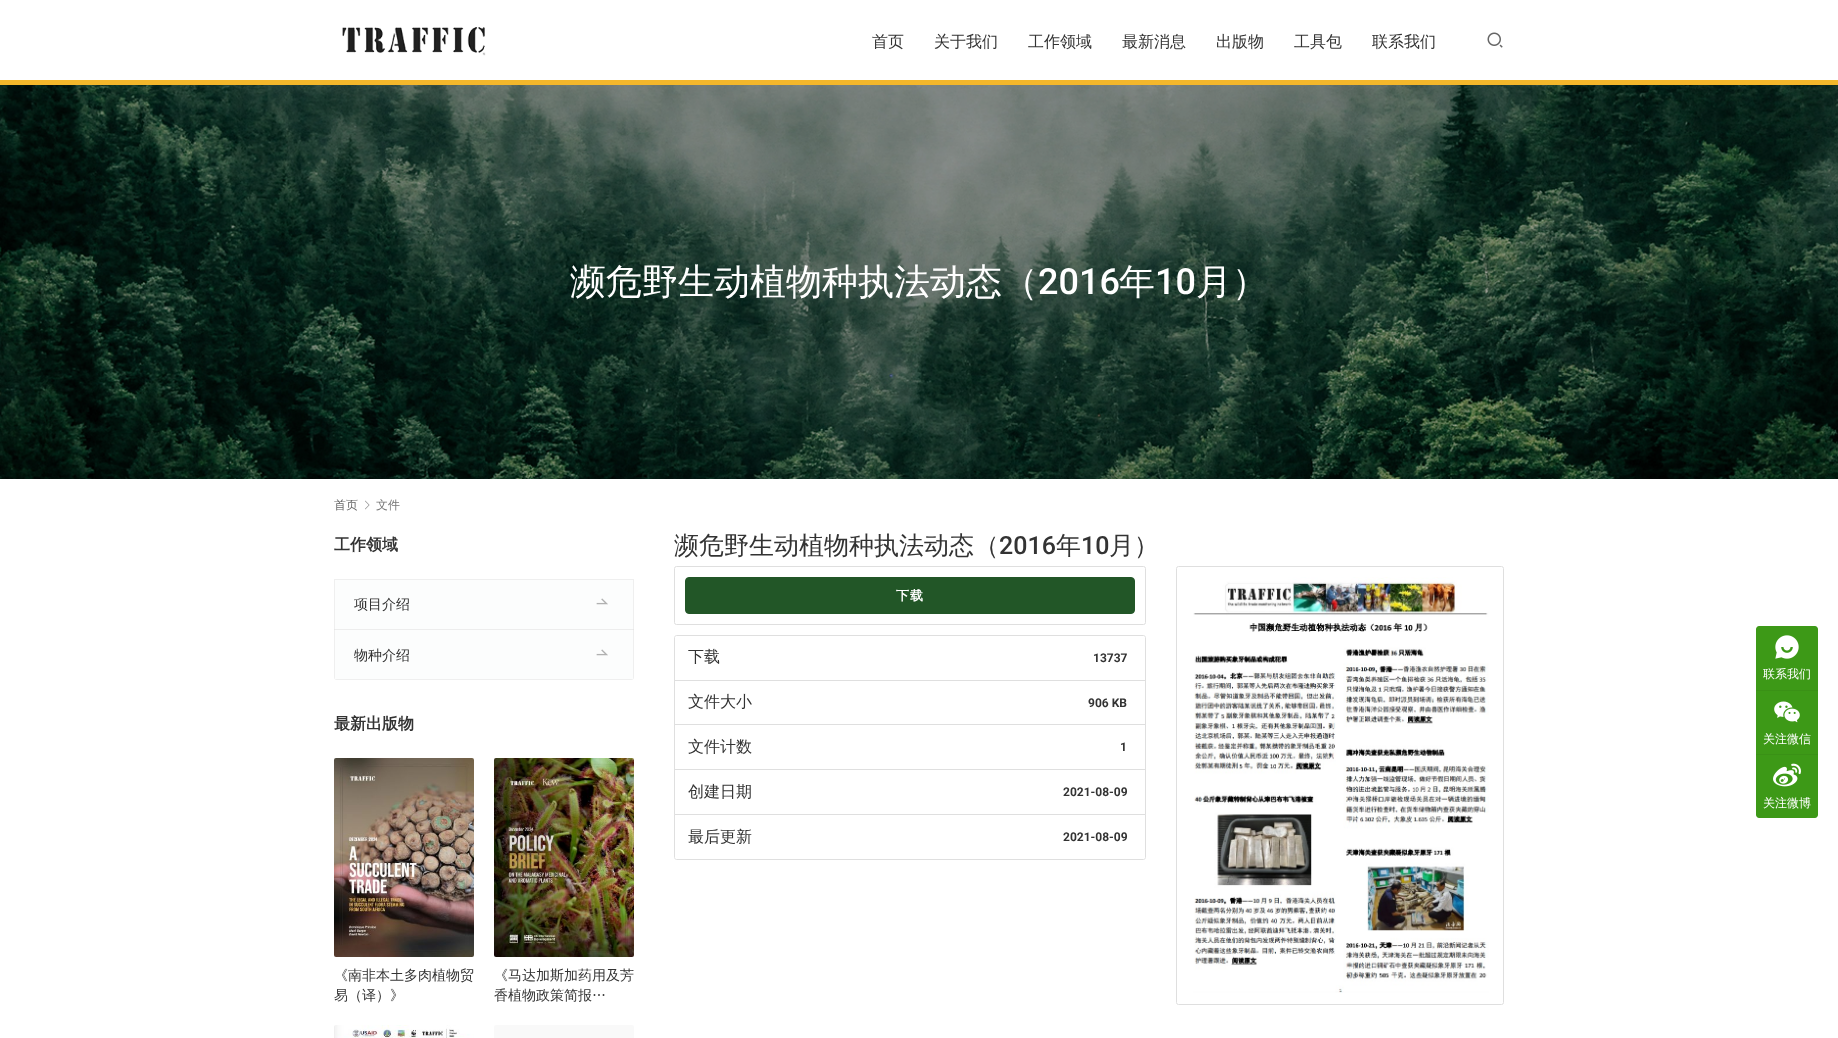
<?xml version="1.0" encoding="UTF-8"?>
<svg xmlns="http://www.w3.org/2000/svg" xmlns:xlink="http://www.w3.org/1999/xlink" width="1838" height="1038">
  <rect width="100%" height="100%" fill="#ffffff" />
  <image x="342" y="27" width="144" height="29" xlink:href="image1.png" />
  <image x="1487" y="32" width="16" height="16" xlink:href="image2.png" />
  <rect y="80" width="1838" height="5" fill="#f4b72b" />
  <image x="0" y="85" width="1838" height="394" xlink:href="image3.png" />
  <image x="365" y="500" width="5" height="10" xlink:href="image4.png" />
  <path d="M 334 579 h 300 v 98 c 0 1.5 -1.5 3 -3 3 h -294 c -1.5 0 -3 -1.5 -3 -3 z" fill="#fcfdfd" />
  <path d="M 334 579 v 98 c 0 2 1 3 3 3 h 294 c 2 0 3 -1 3 -3 v -98 z m 1 1 v 99 h 298 v -99 z" fill="#efefef" fill-rule="evenodd" />
  <image x="596" y="598" width="12" height="7" xlink:href="image5.png" />
  <rect x="334" y="629" width="300" height="1" fill="#dddddd" fill-opacity="0.5" />
  <image x="596" y="649" width="12" height="7" xlink:href="image5.png" />
  <image x="334" y="758" width="140" height="199" xlink:href="image6.png" />
  <image x="494" y="758" width="140" height="199" xlink:href="image7.png" />
  <image x="334" y="1025" width="140" height="13" xlink:href="image8.png" />
  <rect x="494" y="1025" width="140" height="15" rx="2" fill="#f9f9f9" />
  <rect x="674.5" y="566.5" width="471" height="58" rx="2" fill="none" stroke="#dfdfdf" />
  <rect x="685.5" y="577.5" width="449" height="36" rx="3.5" fill="#225627" stroke="#225627" />
  <path d="M 676.5 635.5 h 467 c 1 0 2 1 2 2 v 43 h -471 v -43 c 0 -1 1 -2 2 -2 z" fill="none" stroke="#dfdfdf" />
  <rect x="674.5" y="680.5" width="471" height="44" fill="none" stroke="#dfdfdf" />
  <rect x="674.5" y="724.5" width="471" height="45" fill="none" stroke="#dfdfdf" />
  <rect x="674.5" y="769.5" width="471" height="45" fill="none" stroke="#dfdfdf" />
  <path d="M 674.5 814.5 h 471 v 43 c 0 1 -1 2 -2 2 h -467 c -1 0 -2 -1 -2 -2 z" fill="#ffffff" stroke="#dfdfdf" />
  <rect x="1176.5" y="566.5" width="327" height="438" rx="2" fill="none" stroke="#dfdfdf" />
  <image x="1193" y="577" width="296" height="416" xlink:href="image9.png" />
  <path d="M 1759 626 h 56 c 1.5 0 3 1.5 3 3 v 61 h -62 v -61 c 0 -1.5 1.5 -3 3 -3 z" fill="#3d9917" />
  <image x="1775" y="635" width="24" height="24" xlink:href="image10.png" />
  <rect x="1756" y="691" width="62" height="63" fill="#3d9917" />
  <rect x="1756" y="690" width="62" height="1" fill="#3a9116" />
  <image x="1774" y="701" width="26" height="22" xlink:href="image11.png" />
  <path d="M 1756 754 h 62 v 61 c 0 1.5 -1.5 3 -3 3 h -56 c -1.5 0 -3 -1.5 -3 -3 z" fill="#3d9917" />
  <rect x="1756" y="754" width="62" height="1" fill="#3a9116" />
  <image x="1773" y="763" width="28" height="24" xlink:href="image12.png" />
  <text x="872" y="47" style="font-family: WenQuanYi Zen Hei; font-size: 16px; font-weight: 500; fill: #333333">首页</text>
  <text x="934" y="47" style="font-family: WenQuanYi Zen Hei; font-size: 16px; font-weight: 500; fill: #333333">关于我们</text>
  <text x="1028" y="47" style="font-family: WenQuanYi Zen Hei; font-size: 16px; font-weight: 500; fill: #333333">工作领域</text>
  <text x="1122" y="47" style="font-family: WenQuanYi Zen Hei; font-size: 16px; font-weight: 500; fill: #333333">最新消息</text>
  <text x="1216" y="47" style="font-family: WenQuanYi Zen Hei; font-size: 16px; font-weight: 500; fill: #333333">出版物</text>
  <text x="1294" y="47" style="font-family: WenQuanYi Zen Hei; font-size: 16px; font-weight: 500; fill: #333333">工具包</text>
  <text x="1372" y="47" style="font-family: WenQuanYi Zen Hei; font-size: 16px; font-weight: 500; fill: #333333">联系我们</text>
  <text x="570" y="294" style="font-family: WenQuanYi Zen Hei; font-size: 36px; font-weight: 500; fill: #ffffff">濒危野生动植物种执法动态（</text>
  <text x="1038" y="294" style="font-family: Roboto; font-size: 36px; font-weight: 500; fill: #ffffff">2016</text>
  <text x="1119" y="294" style="font-family: WenQuanYi Zen Hei; font-size: 36px; font-weight: 500; fill: #ffffff">年</text>
  <text x="1155" y="294" style="font-family: Roboto; font-size: 36px; font-weight: 500; fill: #ffffff">10</text>
  <text x="1196" y="294" style="font-family: WenQuanYi Zen Hei; font-size: 36px; font-weight: 500; fill: #ffffff">月）</text>
  <text x="334" y="509" style="font-family: WenQuanYi Zen Hei; font-size: 12px; font-weight: 500; fill: #666666">首页</text>
  <text x="376" y="509" style="font-family: WenQuanYi Zen Hei; font-size: 12px; font-weight: 500; fill: #767676">文件</text>
  <text x="334" y="550" style="font-family: WenQuanYi Zen Hei; font-size: 16px; font-weight: bold; fill: #333333">工作领域</text>
  <text x="354" y="609" style="font-family: WenQuanYi Zen Hei; font-size: 14px; font-weight: 500; fill: #333333">项目介绍</text>
  <text x="354" y="660" style="font-family: WenQuanYi Zen Hei; font-size: 14px; font-weight: 500; fill: #333333">物种介绍</text>
  <text x="334" y="729" style="font-family: WenQuanYi Zen Hei; font-size: 16px; font-weight: bold; fill: #333333">最新出版物</text>
  <text x="334" y="980" style="font-family: WenQuanYi Zen Hei; font-size: 14px; font-weight: 500; fill: #333333">《南非本土多肉植物贸</text>
  <text x="334" y="1000" style="font-family: WenQuanYi Zen Hei; font-size: 14px; font-weight: 500; fill: #333333">易（译）》</text>
  <text x="494" y="980" style="font-family: WenQuanYi Zen Hei; font-size: 14px; font-weight: 500; fill: #333333">《马达加斯加药用及芳</text>
  <text x="494" y="1000" style="font-family: WenQuanYi Zen Hei; font-size: 14px; font-weight: 500; fill: #333333">香植物政策简报…</text>
  <text x="674" y="554" style="font-family: WenQuanYi Zen Hei; font-size: 25px; font-weight: 500; fill: #333333">濒危野生动植物种执法动态（</text>
  <text x="999" y="554" style="font-family: Roboto; font-size: 25px; font-weight: 500; fill: #333333">2016</text>
  <text x="1056" y="554" style="font-family: WenQuanYi Zen Hei; font-size: 25px; font-weight: 500; fill: #333333">年</text>
  <text x="1081" y="554" style="font-family: Roboto; font-size: 25px; font-weight: 500; fill: #333333">10</text>
  <text x="1109" y="554" style="font-family: WenQuanYi Zen Hei; font-size: 25px; font-weight: 500; fill: #333333">月）</text>
  <text x="896" y="600" style="font-family: WenQuanYi Zen Hei; font-size: 13px; font-weight: bold; letter-spacing: 1px; fill: #ffffff">下载</text>
  <text x="688" y="662" style="font-family: WenQuanYi Zen Hei; font-size: 16px; font-weight: 500; fill: #333333">下载</text>
  <text x="1093" y="662" style="font-family: Roboto; font-size: 12px; font-weight: bold; fill: #333333">13737</text>
  <text x="688" y="707" style="font-family: WenQuanYi Zen Hei; font-size: 16px; font-weight: 500; fill: #333333">文件大小</text>
  <text x="1088" y="707" style="font-family: Roboto; font-size: 12px; font-weight: bold; fill: #333333">906 KB</text>
  <text x="688" y="752" style="font-family: WenQuanYi Zen Hei; font-size: 16px; font-weight: 500; fill: #333333">文件计数</text>
  <text x="1120" y="751" style="font-family: Roboto; font-size: 12px; font-weight: bold; fill: #333333">1</text>
  <text x="688" y="797" style="font-family: WenQuanYi Zen Hei; font-size: 16px; font-weight: 500; fill: #333333">创建日期</text>
  <text x="1063" y="796" style="font-family: Roboto; font-size: 12px; font-weight: bold; fill: #333333">2021-08-09</text>
  <text x="688" y="842" style="font-family: WenQuanYi Zen Hei; font-size: 16px; font-weight: 500; fill: #333333">最后更新</text>
  <text x="1063" y="841" style="font-family: Roboto; font-size: 12px; font-weight: bold; fill: #333333">2021-08-09</text>
  <text x="1763" y="678" style="font-family: WenQuanYi Zen Hei; font-size: 12px; font-weight: 500; fill: #ffffff">联系我们</text>
  <text x="1763" y="743" style="font-family: WenQuanYi Zen Hei; font-size: 12px; font-weight: 500; fill: #ffffff">关注微信</text>
  <text x="1763" y="807" style="font-family: WenQuanYi Zen Hei; font-size: 12px; font-weight: 500; fill: #ffffff">关注微博</text>
</svg>
